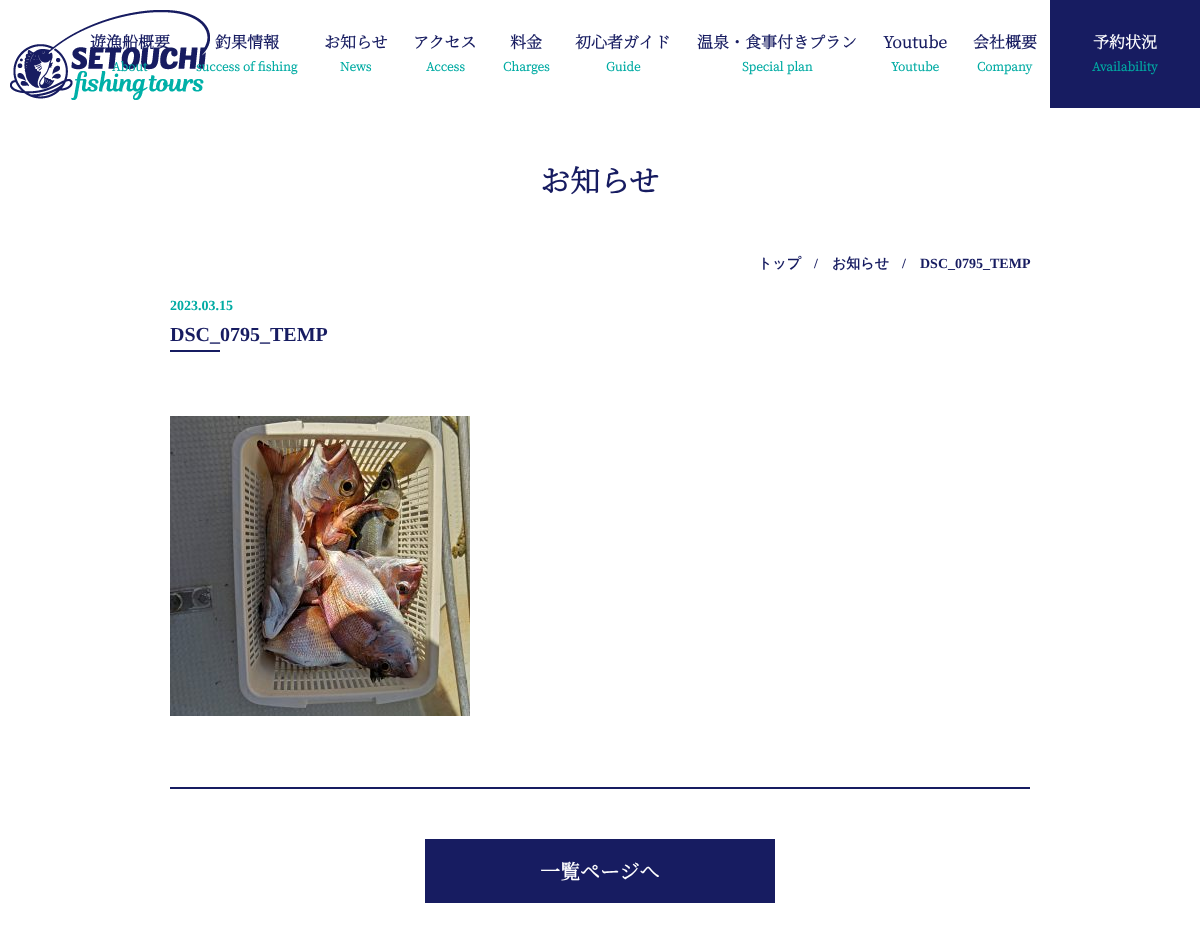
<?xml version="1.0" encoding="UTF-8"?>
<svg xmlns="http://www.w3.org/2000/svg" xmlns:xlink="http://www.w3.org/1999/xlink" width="1200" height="930">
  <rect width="100%" height="100%" fill="#ffffff" />
  <image x="10" y="10" width="200" height="90" xlink:href="image1.png" />
  <rect x="1050" width="150" height="108" fill="#171c61" />
  <rect x="170" y="350" width="50" height="2" fill="#171c61" />
  <rect x="170" y="787" width="860" height="2" fill="#171c61" />
  <image x="170" y="416" width="300" height="300" xlink:href="image2.png" />
  <rect x="425" y="839" width="350" height="64" fill="#171c61" />
  <text x="90" y="48" style="font-family: Noto Serif JP; font-size: 16px; font-weight: bold; fill: #171c61">遊漁船概要</text>
  <text x="112" y="71" style="font-family: Noto Serif JP; font-size: 12px; font-weight: bold; fill: #00aba3">About</text>
  <text x="215" y="48" style="font-family: Noto Serif JP; font-size: 16px; font-weight: bold; fill: #171c61">釣果情報</text>
  <text x="196" y="71" style="font-family: Noto Serif JP; font-size: 12px; font-weight: bold; fill: #00aba3">success of fishing</text>
  <text x="324" y="48" style="font-family: Noto Serif JP; font-size: 16px; font-weight: bold; fill: #171c61">お知らせ</text>
  <text x="340" y="71" style="font-family: Noto Serif JP; font-size: 12px; font-weight: bold; fill: #00aba3">News</text>
  <text x="413" y="48" style="font-family: Noto Serif JP; font-size: 16px; font-weight: bold; fill: #171c61">アクセス</text>
  <text x="426" y="71" style="font-family: Noto Serif JP; font-size: 12px; font-weight: bold; fill: #00aba3">Access</text>
  <text x="510" y="48" style="font-family: Noto Serif JP; font-size: 16px; font-weight: bold; fill: #171c61">料金</text>
  <text x="503" y="71" style="font-family: Noto Serif JP; font-size: 12px; font-weight: bold; fill: #00aba3">Charges</text>
  <text x="575" y="48" style="font-family: Noto Serif JP; font-size: 16px; font-weight: bold; fill: #171c61">初心者ガイド</text>
  <text x="606" y="71" style="font-family: Noto Serif JP; font-size: 12px; font-weight: bold; fill: #00aba3">Guide</text>
  <text x="697" y="48" style="font-family: Noto Serif JP; font-size: 16px; font-weight: bold; fill: #171c61">温泉・食事付きプラン</text>
  <text x="742" y="71" style="font-family: Noto Serif JP; font-size: 12px; font-weight: bold; fill: #00aba3">Special plan</text>
  <text x="883" y="48" style="font-family: Noto Serif JP; font-size: 16px; font-weight: bold; fill: #171c61">Youtube</text>
  <text x="891" y="71" style="font-family: Noto Serif JP; font-size: 12px; font-weight: bold; fill: #00aba3">Youtube</text>
  <text x="973" y="48" style="font-family: Noto Serif JP; font-size: 16px; font-weight: bold; fill: #171c61">会社概要</text>
  <text x="977" y="71" style="font-family: Noto Serif JP; font-size: 12px; font-weight: bold; fill: #00aba3">Company</text>
  <text x="1093" y="48" style="font-family: Noto Serif JP; font-size: 16px; font-weight: bold; fill: #ffffff">予約状況</text>
  <text x="1092" y="71" style="font-family: Noto Serif JP; font-size: 12px; font-weight: bold; fill: #00aba3">Availability</text>
  <text x="540" y="192" style="font-family: Noto Serif JP; font-size: 30px; font-weight: bold; fill: #171c61">お知らせ</text>
  <text x="758" y="268" style="font-family: WenQuanYi Zen Hei; font-size: 14px; font-weight: bold; fill: #171c61">トップ</text>
  <text x="814" y="268" style="font-family: Liberation Serif; font-size: 14px; font-weight: bold; fill: #171c61">/</text>
  <text x="832" y="268" style="font-family: WenQuanYi Zen Hei; font-size: 14px; font-weight: bold; fill: #171c61">お知らせ</text>
  <text x="902" y="268" style="font-family: Liberation Serif; font-size: 14px; font-weight: bold; fill: #171c61">/</text>
  <text x="920" y="268" style="font-family: Liberation Serif; font-size: 14px; font-weight: bold; fill: #171c61">DSC_0795_TEMP</text>
  <text x="170" y="310" style="font-family: Liberation Serif; font-size: 14px; font-weight: bold; fill: #00aba3">2023.03.15</text>
  <text x="170" y="341" style="font-family: Liberation Serif; font-size: 20px; font-weight: bold; fill: #171c61">DSC_0795_TEMP</text>
  <text x="540" y="879" style="font-family: Noto Serif JP; font-size: 20px; font-weight: bold; fill: #ffffff">一覧ページへ</text>
</svg>
